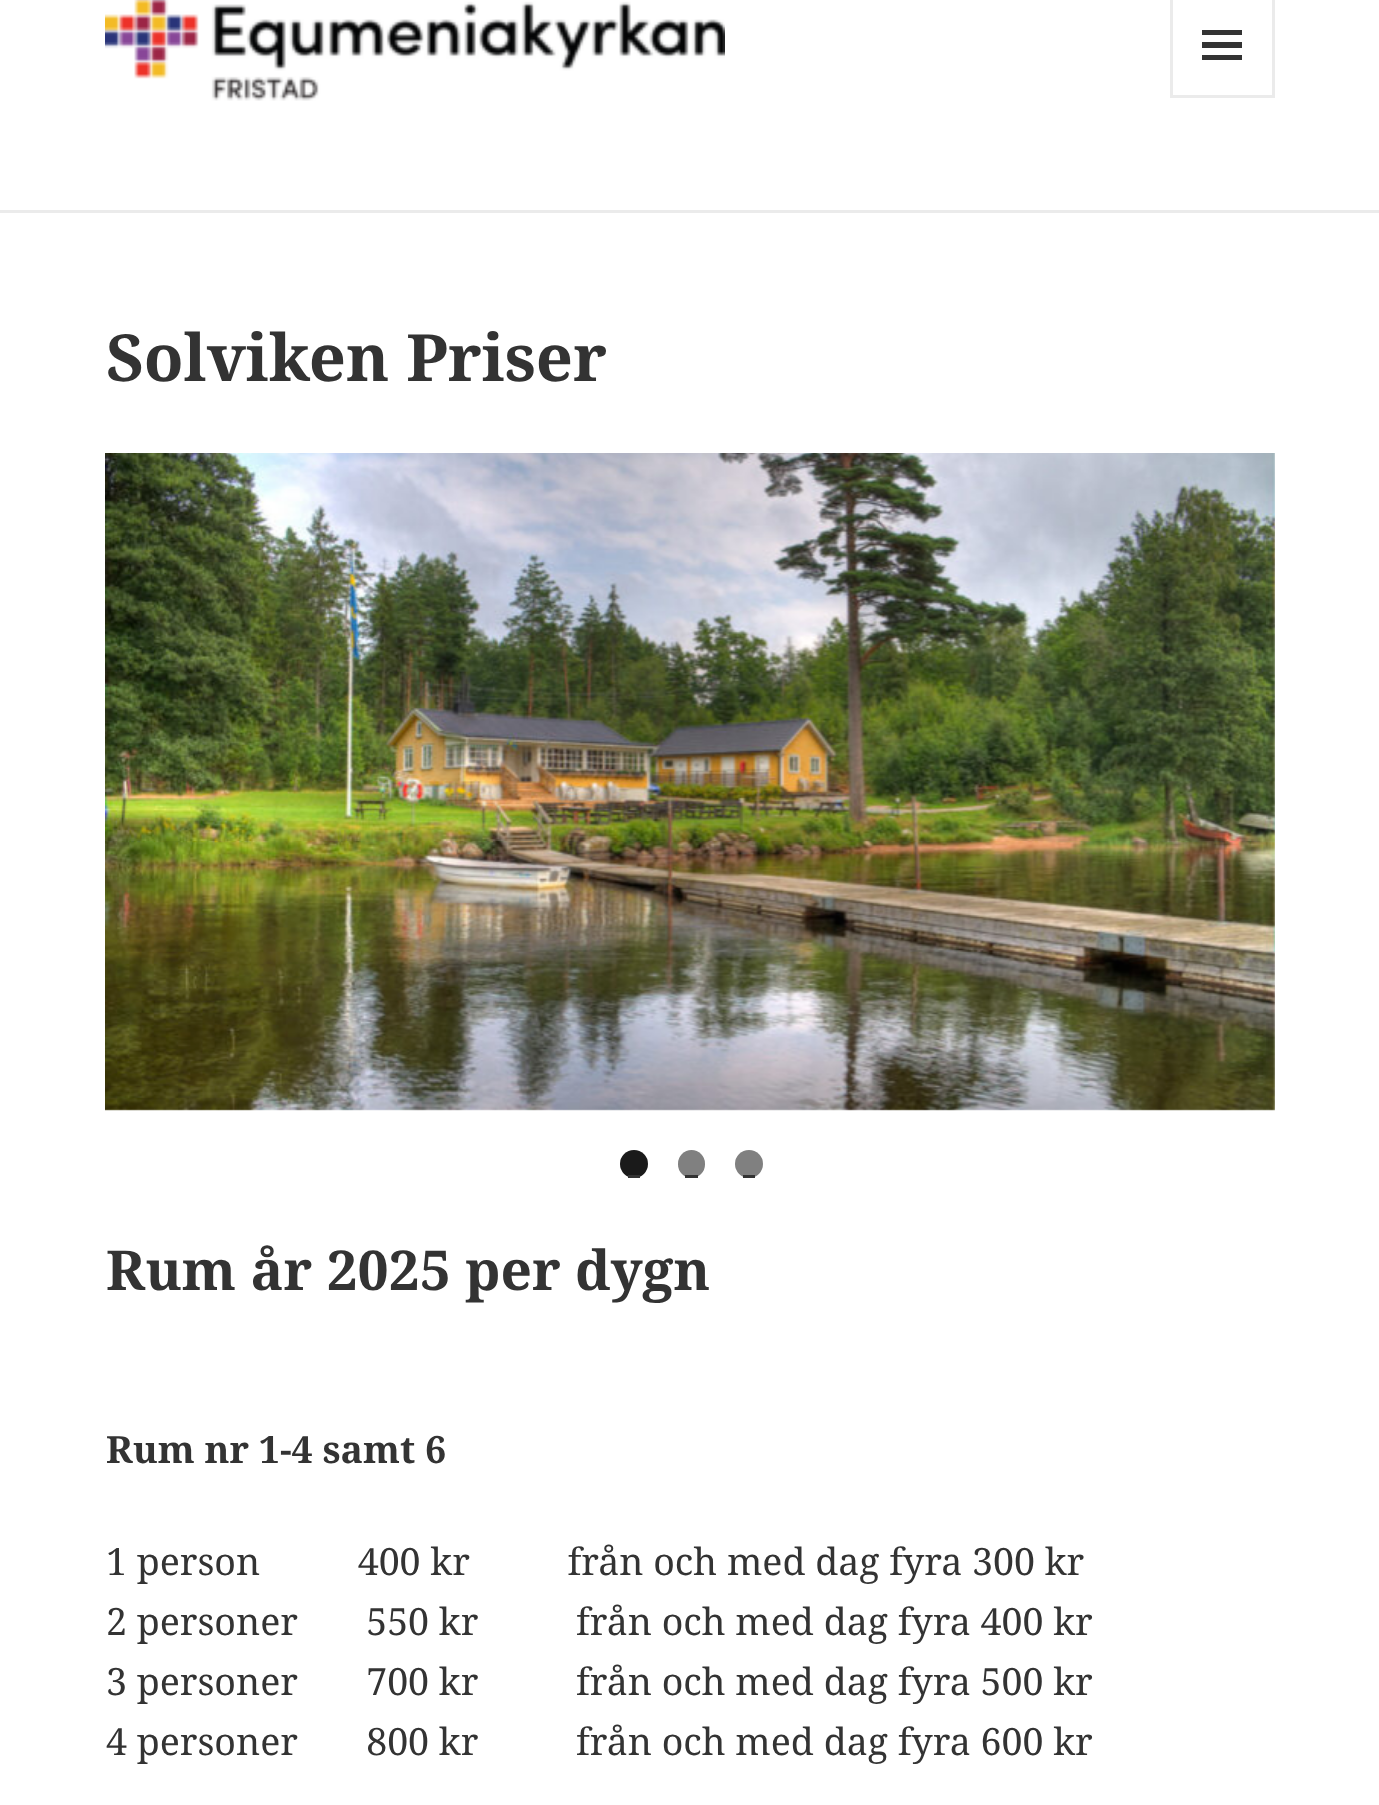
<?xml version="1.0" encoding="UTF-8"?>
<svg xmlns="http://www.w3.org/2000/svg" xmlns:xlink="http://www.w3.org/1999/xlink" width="1379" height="1805">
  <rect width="100%" height="100%" fill="#ffffff" />
  <rect y="210" width="1379" height="3" fill="#ebebeb" />
  <image x="105" y="0" width="620" height="101" xlink:href="image1.png" />
  <rect x="1171.5" y="-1.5" width="102" height="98" fill="none" stroke="#ebebeb" stroke-width="3" />
  <path d="M 1202 60 v -5 h 40 v 5 z m 0 -30 h 40 v 5 h -40 z m 0 18 v -6 h 40 v 6 z" fill="#333333" />
  <image x="105" y="453" width="1170" height="658" xlink:href="image2.png" />
  <circle cx="634" cy="1164" r="14" fill="#1a1a1a" />
  <rect x="628" y="1175" width="12" height="3" fill="#333333" />
  <rect x="678" y="1150" width="27" height="28" rx="13.5" fill="#808080" />
  <rect x="685" y="1175" width="13" height="3" fill="#333333" />
  <circle cx="749" cy="1164" r="14" fill="#808080" />
  <rect x="743" y="1175" width="12" height="3" fill="#333333" />
  <text x="106" y="381" style="font-family: Noto Serif; font-size: 65px; font-weight: bold; fill: #333333">Solviken Priser</text>
  <text x="106" y="1290" style="font-family: Noto Serif; font-size: 55px; font-weight: bold; fill: #333333">Rum år 2025 per dygn</text>
  <text x="106" y="1463" style="font-family: Noto Serif; font-size: 37.5px; font-weight: bold; fill: #333333">Rum nr 1-4 samt 6</text>
  <text x="106" y="1575" style="font-family: Noto Serif; font-size: 37.5px; fill: #333333" xml:space="preserve">1 person          400 kr          från och med dag fyra 300 kr</text>
  <text x="106" y="1635" style="font-family: Noto Serif; font-size: 37.5px; fill: #333333" xml:space="preserve">2 personer       550 kr          från och med dag fyra 400 kr</text>
  <text x="106" y="1695" style="font-family: Noto Serif; font-size: 37.5px; fill: #333333" xml:space="preserve">3 personer       700 kr          från och med dag fyra 500 kr</text>
  <text x="106" y="1755" style="font-family: Noto Serif; font-size: 37.5px; fill: #333333" xml:space="preserve">4 personer       800 kr          från och med dag fyra 600 kr</text>
</svg>
